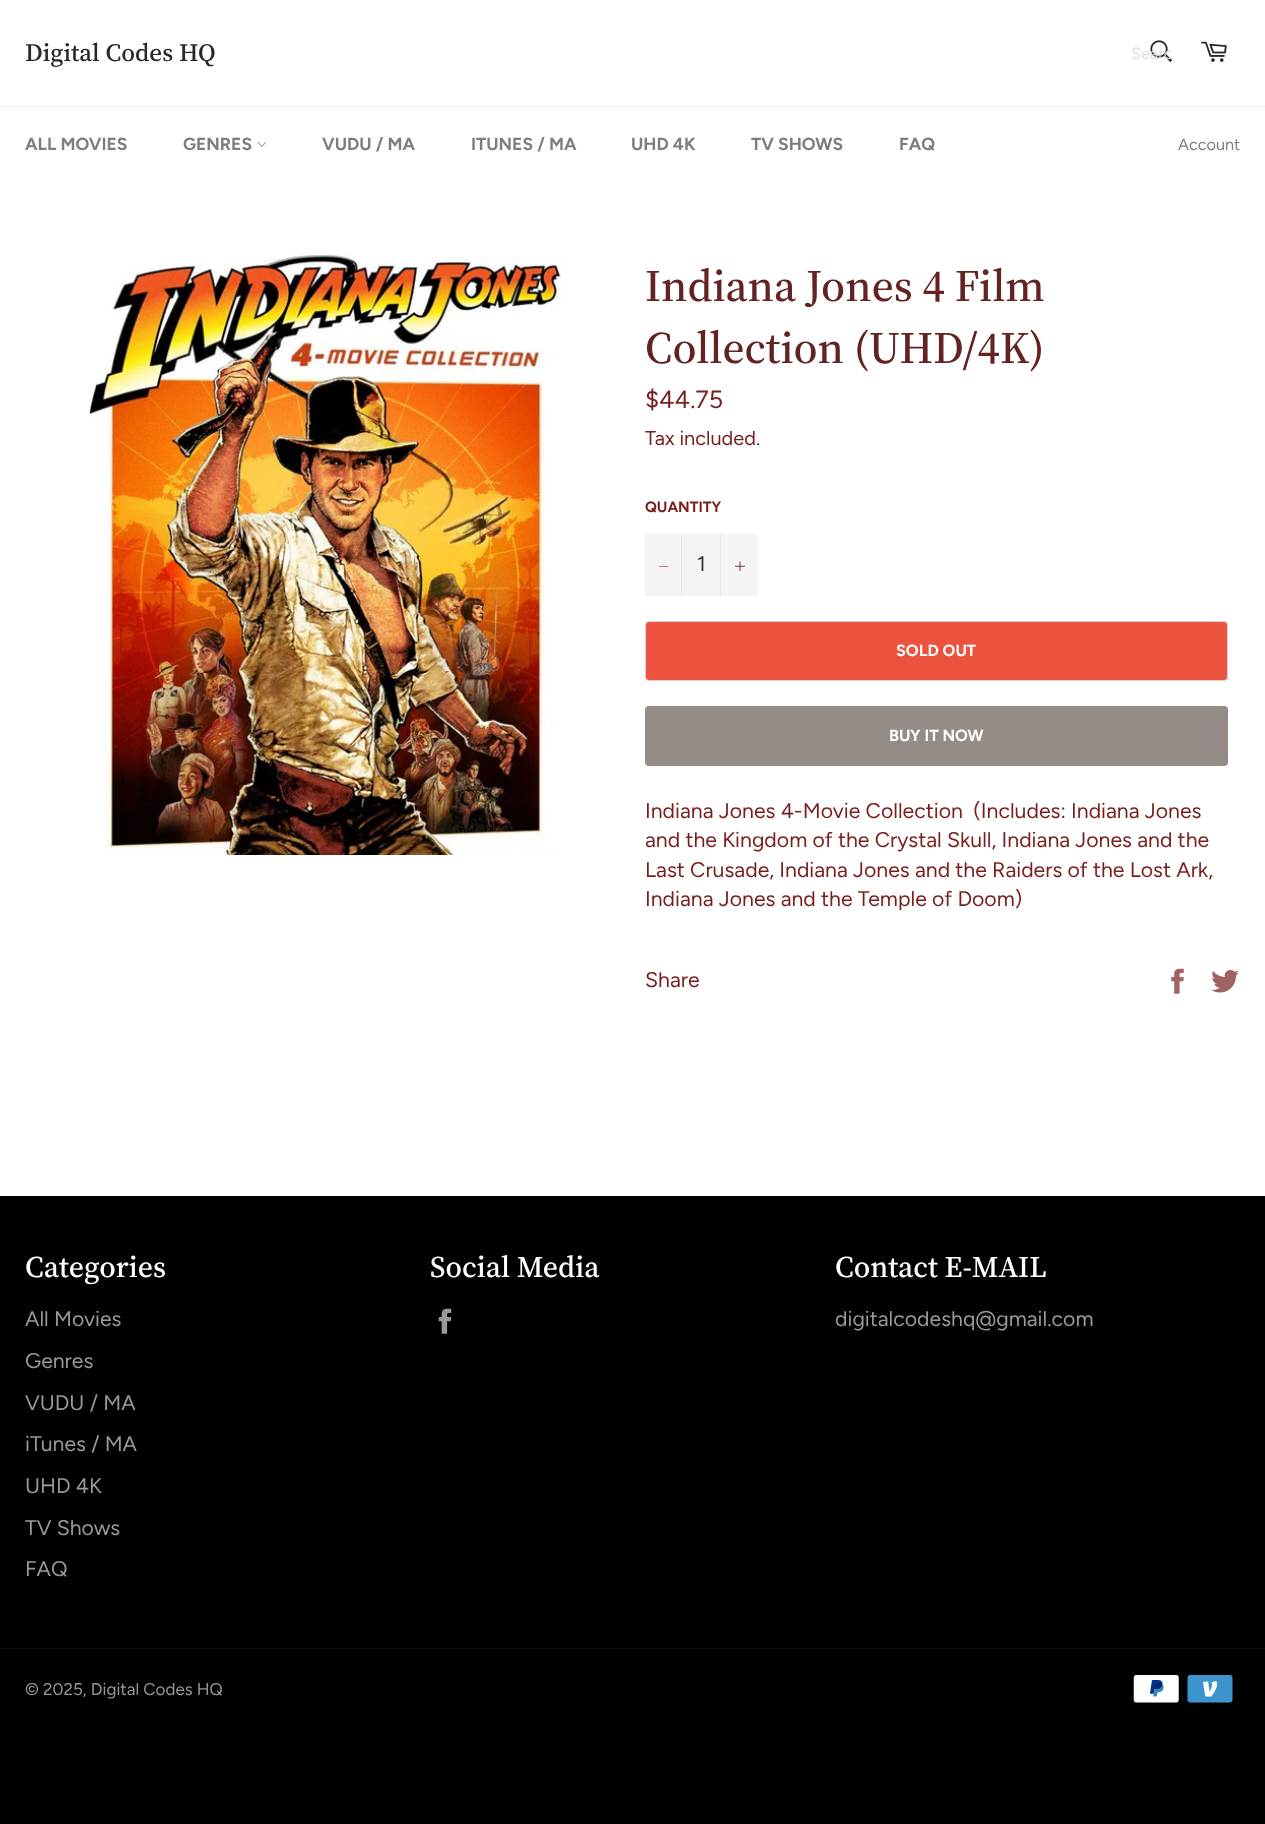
<?xml version="1.0" encoding="UTF-8"?>
<svg xmlns="http://www.w3.org/2000/svg" xmlns:xlink="http://www.w3.org/1999/xlink" width="1265" height="1824">
  <defs>
    <clipPath id="clip1"><rect x="1131" y="44" width="40" height="19" /></clipPath>
  </defs>
  <rect width="100%" height="100%" fill="#000000" />
  <rect width="1265" height="1196" fill="#ffffff" />
  <image x="1150" y="40" width="22" height="22" xlink:href="image1.png" />
  <image x="1201" y="41" width="26" height="21" xlink:href="image2.png" />
  <rect y="106" width="1265" height="1" fill="#f2f2f2" />
  <image x="257" y="141" width="10" height="6" xlink:href="image3.png" />
  <image x="87" y="255" width="475" height="600" xlink:href="image4.png" />
  <rect x="645" y="534" width="113" height="62" fill="#f4f4f4" />
  <rect x="681" y="534" width="1" height="62" fill="#e7e7e7" />
  <path d="M 668.5 566 v 0.5 h -9.5 v -0.5 z" fill="#791e1e" fill-rule="evenodd" />
  <rect x="720" y="534" width="1" height="62" fill="#e7e7e7" />
  <image x="735" y="561" width="10" height="10" xlink:href="image5.png" />
  <rect x="645.5" y="621.5" width="582" height="59" rx="3.5" fill="#ec523e" stroke="#d5d5d5" />
  <rect x="645" y="706" width="583" height="60" rx="4" fill="#958c88" />
  <image x="1171" y="968" width="13" height="26" xlink:href="image6.png" />
  <image x="1211" y="970" width="28" height="23" xlink:href="image7.png" />
  <image x="438" y="1308" width="14" height="26" xlink:href="image8.png" />
  <rect y="1648" width="1265" height="1" fill="#0d0d0d" />
  <image x="1133" y="1675" width="46" height="28" xlink:href="image9.png" />
  <image x="1187" y="1675" width="46" height="28" xlink:href="image10.png" />
  <text x="25" y="61" style="font-family: 'Source Serif 4'; font-size: 25px; font-weight: 500; fill: #282828">Digital Codes HQ</text>
  <g clip-path="url(#clip1)">
    <text x="1131" y="59" style="font-family: Figtree; font-size: 16.25px; fill: #dcdcdc">Searc</text>
  </g>
  <text x="25" y="150" style="font-family: Figtree; font-size: 17.5px; font-weight: bold; fill: #7e7e7e">ALL MOVIES</text>
  <text x="183" y="150" style="font-family: Figtree; font-size: 17.5px; font-weight: bold; fill: #7e7e7e">GENRES</text>
  <text x="322" y="150" style="font-family: Figtree; font-size: 17.5px; font-weight: bold; fill: #7e7e7e">VUDU / MA</text>
  <text x="471" y="150" style="font-family: Figtree; font-size: 17.5px; font-weight: bold; fill: #7e7e7e">ITUNES / MA</text>
  <text x="631" y="150" style="font-family: Figtree; font-size: 17.5px; font-weight: bold; fill: #7e7e7e">UHD 4K</text>
  <text x="751" y="150" style="font-family: Figtree; font-size: 17.5px; font-weight: bold; fill: #7e7e7e">TV SHOWS</text>
  <text x="899" y="150" style="font-family: Figtree; font-size: 17.5px; font-weight: bold; fill: #7e7e7e">FAQ</text>
  <text x="1178" y="150" style="font-family: Figtree; font-size: 16.25px; fill: #7e7e7e">Account</text>
  <text x="645" y="301" style="font-family: 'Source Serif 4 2'; font-size: 45px; font-weight: 500; fill: #632323">Indiana Jones 4 Film</text>
  <text x="645" y="363" style="font-family: 'Source Serif 4 2'; font-size: 45px; font-weight: 500; fill: #632323">Collection (UHD/4K)</text>
  <text x="645" y="408" style="font-family: Figtree; font-size: 25px; fill: #791e1e">$44.75</text>
  <text x="645" y="445" style="font-family: Figtree; font-size: 20px; fill: #791e1e">Tax included.</text>
  <text x="645" y="512" style="font-family: Figtree; font-size: 15px; font-weight: bold; fill: #791e1e">QUANTITY</text>
  <text x="697" y="571" style="font-family: Figtree; font-size: 21.25px; fill: #333333">1</text>
  <text x="896" y="656" style="font-family: Figtree; font-size: 16.25px; font-weight: bold; fill: #ffffff">SOLD OUT</text>
  <text x="889" y="741" style="font-family: Figtree; font-size: 16.25px; font-weight: bold; fill: #ffffff">BUY IT NOW</text>
  <text x="645" y="818" style="font-family: Figtree; font-size: 21.25px; fill: #791e1e" xml:space="preserve">Indiana Jones 4-Movie Collection  (Includes: Indiana Jones</text>
  <text x="645" y="847" style="font-family: Figtree; font-size: 21.25px; fill: #791e1e">and the Kingdom of the Crystal Skull, Indiana Jones and the</text>
  <text x="645" y="877" style="font-family: Figtree; font-size: 21.25px; fill: #791e1e">Last Crusade, Indiana Jones and the Raiders of the Lost Ark,</text>
  <text x="645" y="906" style="font-family: Figtree; font-size: 21.25px; fill: #791e1e">Indiana Jones and the Temple of Doom)</text>
  <text x="645" y="987" style="font-family: Figtree; font-size: 21.25px; fill: #791e1e">Share</text>
  <text x="25" y="1277" style="font-family: 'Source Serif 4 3'; font-size: 30px; font-weight: 500; fill: #ffffff">Categories</text>
  <text x="25" y="1326" style="font-family: Figtree; font-size: 21.25px; fill: #999999">All Movies</text>
  <text x="25" y="1368" style="font-family: Figtree; font-size: 21.25px; fill: #999999">Genres</text>
  <text x="25" y="1410" style="font-family: Figtree; font-size: 21.25px; fill: #999999">VUDU / MA</text>
  <text x="25" y="1451" style="font-family: Figtree; font-size: 21.25px; fill: #999999">iTunes / MA</text>
  <text x="25" y="1493" style="font-family: Figtree; font-size: 21.25px; fill: #999999">UHD 4K</text>
  <text x="25" y="1535" style="font-family: Figtree; font-size: 21.25px; fill: #999999">TV Shows</text>
  <text x="25" y="1576" style="font-family: Figtree; font-size: 21.25px; fill: #999999">FAQ</text>
  <text x="430" y="1277" style="font-family: 'Source Serif 4 3'; font-size: 30px; font-weight: 500; fill: #ffffff">Social Media</text>
  <text x="835" y="1277" style="font-family: 'Source Serif 4 3'; font-size: 30px; font-weight: 500; fill: #ffffff">Contact E-MAIL</text>
  <text x="835" y="1326" style="font-family: Figtree; font-size: 21.25px; fill: #999999">digitalcodeshq@gmail.com</text>
  <text x="25" y="1695" style="font-family: Figtree; font-size: 17px; fill: #999999">© 2025, Digital Codes HQ</text>
</svg>
